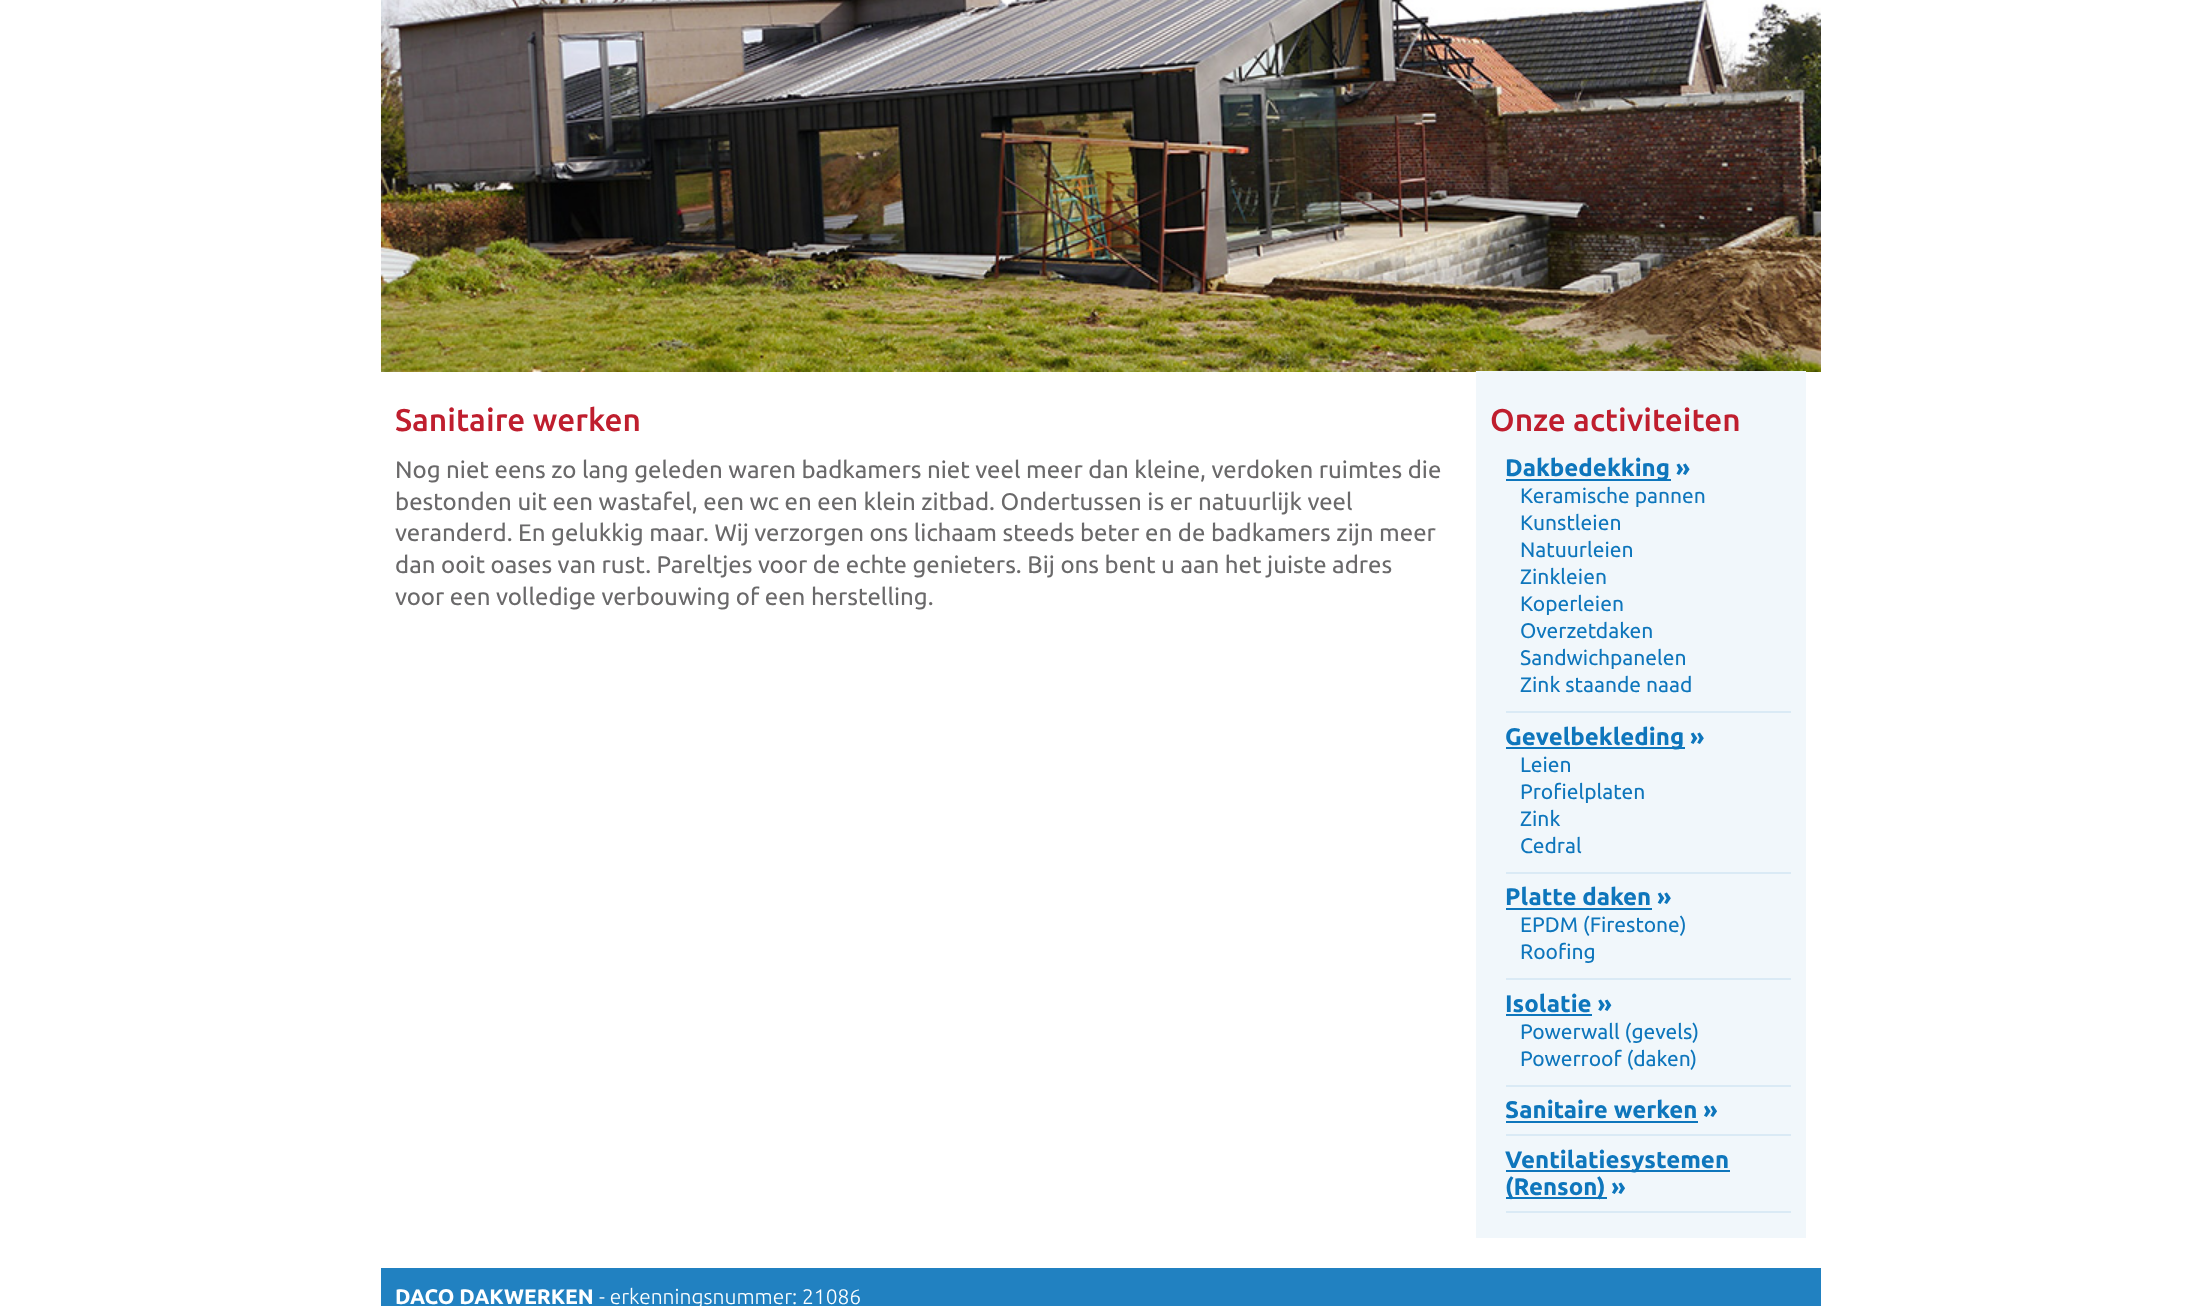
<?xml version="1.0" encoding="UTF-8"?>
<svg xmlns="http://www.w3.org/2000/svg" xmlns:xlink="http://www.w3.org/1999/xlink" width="2200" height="1306">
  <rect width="100%" height="100%" fill="#ffffff" />
  <image x="381" y="0" width="1440" height="372" xlink:href="image1.png" />
  <rect x="1476" y="371" width="330" height="867" fill="#f1f7fb" />
  <rect x="1506" y="711" width="285" height="2" fill="#daeaf5" />
  <rect x="1506" y="479" width="165" height="2" fill="#0e76bc" />
  <rect x="1506" y="872" width="285" height="2" fill="#daeaf5" />
  <rect x="1506" y="747" width="179" height="2" fill="#0e76bc" />
  <rect x="1506" y="978" width="285" height="2" fill="#daeaf5" />
  <rect x="1506" y="908" width="146" height="2" fill="#0e76bc" />
  <rect x="1506" y="1085" width="285" height="2" fill="#daeaf5" />
  <rect x="1506" y="1014" width="86" height="2" fill="#0e76bc" />
  <rect x="1506" y="1134" width="285" height="2" fill="#daeaf5" />
  <rect x="1506" y="1121" width="192" height="2" fill="#0e76bc" />
  <rect x="1506" y="1211" width="285" height="2" fill="#daeaf5" />
  <rect x="1506" y="1170" width="224" height="2" fill="#0e76bc" />
  <rect x="1506" y="1197" width="101" height="2" fill="#0e76bc" />
  <rect x="381" y="1268" width="1440" height="38" fill="#2181c1" />
  <text x="395" y="431" style="font-family: Ubuntu; font-size: 31.5px; font-weight: 500; fill: #bf1e2e">Sanitaire werken</text>
  <text x="395" y="478" style="font-family: Ubuntu; font-size: 24px; fill: #6a696a">Nog niet eens zo lang geleden waren badkamers niet veel meer dan kleine, verdoken ruimtes die</text>
  <text x="395" y="510" style="font-family: Ubuntu; font-size: 24px; fill: #6a696a">bestonden uit een wastafel, een wc en een klein zitbad. Ondertussen is er natuurlijk veel</text>
  <text x="395" y="541" style="font-family: Ubuntu; font-size: 24px; fill: #6a696a">veranderd. En gelukkig maar. Wij verzorgen ons lichaam steeds beter en de badkamers zijn meer</text>
  <text x="395" y="573" style="font-family: Ubuntu; font-size: 24px; fill: #6a696a">dan ooit oases van rust. Pareltjes voor de echte genieters. Bij ons bent u aan het juiste adres</text>
  <text x="395" y="605" style="font-family: Ubuntu; font-size: 24px; fill: #6a696a">voor een volledige verbouwing of een herstelling.</text>
  <text x="1490" y="431" style="font-family: Ubuntu; font-size: 31.5px; font-weight: 500; fill: #bf1e2e">Onze activiteiten</text>
  <text x="1505" y="476" style="font-family: Ubuntu; font-size: 24px; font-weight: bold; fill: #0e76bc">Dakbedekking »</text>
  <text x="1520" y="503" style="font-family: Ubuntu; font-size: 21px; fill: #0e76bc">Keramische pannen</text>
  <text x="1520" y="530" style="font-family: Ubuntu; font-size: 21px; fill: #0e76bc">Kunstleien</text>
  <text x="1520" y="557" style="font-family: Ubuntu; font-size: 21px; fill: #0e76bc">Natuurleien</text>
  <text x="1520" y="584" style="font-family: Ubuntu; font-size: 21px; fill: #0e76bc">Zinkleien</text>
  <text x="1520" y="611" style="font-family: Ubuntu; font-size: 21px; fill: #0e76bc">Koperleien</text>
  <text x="1520" y="638" style="font-family: Ubuntu; font-size: 21px; fill: #0e76bc">Overzetdaken</text>
  <text x="1520" y="665" style="font-family: Ubuntu; font-size: 21px; fill: #0e76bc">Sandwichpanelen</text>
  <text x="1520" y="692" style="font-family: Ubuntu; font-size: 21px; fill: #0e76bc">Zink staande naad</text>
  <text x="1505" y="745" style="font-family: Ubuntu; font-size: 24px; font-weight: bold; fill: #0e76bc">Gevelbekleding »</text>
  <text x="1520" y="772" style="font-family: Ubuntu; font-size: 21px; fill: #0e76bc">Leien</text>
  <text x="1520" y="799" style="font-family: Ubuntu; font-size: 21px; fill: #0e76bc">Profielplaten</text>
  <text x="1520" y="826" style="font-family: Ubuntu; font-size: 21px; fill: #0e76bc">Zink</text>
  <text x="1520" y="853" style="font-family: Ubuntu; font-size: 21px; fill: #0e76bc">Cedral</text>
  <text x="1505" y="905" style="font-family: Ubuntu; font-size: 24px; font-weight: bold; fill: #0e76bc">Platte daken »</text>
  <text x="1520" y="932" style="font-family: Ubuntu; font-size: 21px; fill: #0e76bc">EPDM (Firestone)</text>
  <text x="1520" y="959" style="font-family: Ubuntu; font-size: 21px; fill: #0e76bc">Roofing</text>
  <text x="1505" y="1012" style="font-family: Ubuntu; font-size: 24px; font-weight: bold; fill: #0e76bc">Isolatie »</text>
  <text x="1520" y="1039" style="font-family: Ubuntu; font-size: 21px; fill: #0e76bc">Powerwall (gevels)</text>
  <text x="1520" y="1066" style="font-family: Ubuntu; font-size: 21px; fill: #0e76bc">Powerroof (daken)</text>
  <text x="1505" y="1118" style="font-family: Ubuntu; font-size: 24px; font-weight: bold; fill: #0e76bc">Sanitaire werken »</text>
  <text x="1505" y="1168" style="font-family: Ubuntu; font-size: 24px; font-weight: bold; fill: #0e76bc">Ventilatiesystemen</text>
  <text x="1505" y="1195" style="font-family: Ubuntu; font-size: 24px; font-weight: bold; fill: #0e76bc">(Renson) »</text>
  <text x="395" y="1304" style="font-family: Ubuntu; font-size: 21px; font-weight: bold; fill: #ffffff">DACO DAKWERKEN</text>
  <text x="599" y="1304" style="font-family: Ubuntu; font-size: 21px; font-weight: 300; fill: #ffffff">- erkenningsnummer: 21086</text>
</svg>
